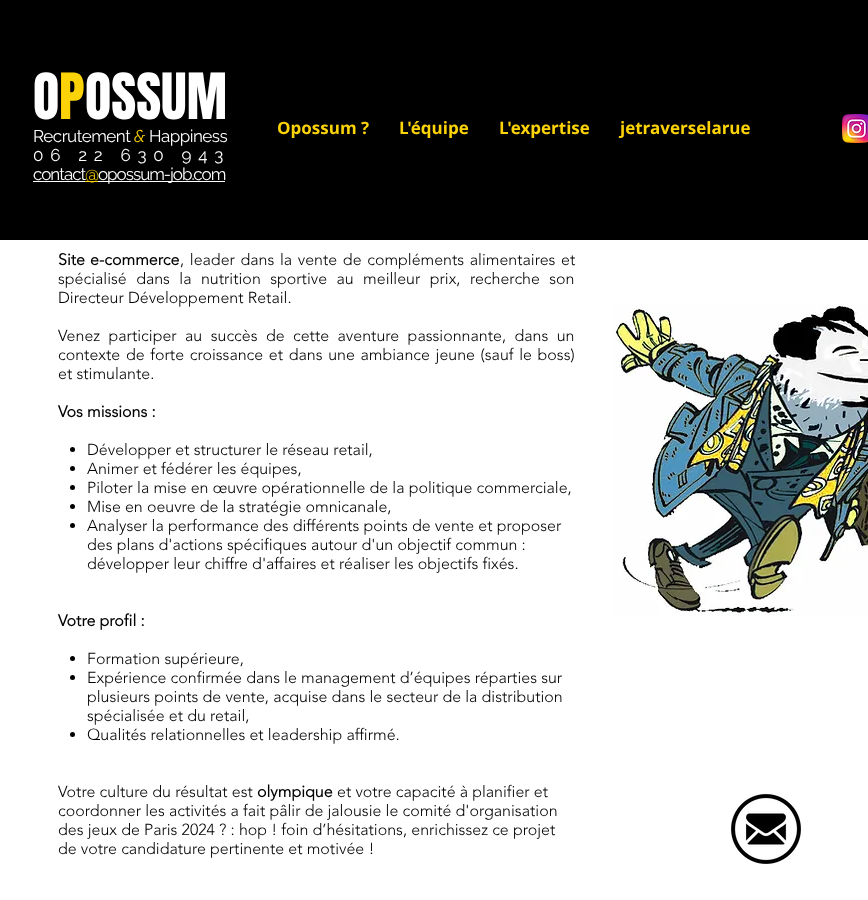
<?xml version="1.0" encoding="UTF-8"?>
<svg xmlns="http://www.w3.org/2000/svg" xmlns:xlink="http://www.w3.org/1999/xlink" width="868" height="900">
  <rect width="100%" height="100%" fill="#ffffff" />
  <rect width="868" height="240" fill="#000000" />
  <rect x="33" y="181" width="52" height="1" fill="#ffffff" />
  <rect x="85" y="181" width="13" height="1" fill="#fcd307" />
  <image x="842" y="114" width="26" height="29" xlink:href="image1.png" />
  <circle cx="72.5" cy="449.5" r="2.5" fill="#000000" />
  <circle cx="72.5" cy="468.5" r="2.5" fill="#000000" />
  <circle cx="72.5" cy="487.5" r="2.5" fill="#000000" />
  <circle cx="72.5" cy="506.5" r="2.5" fill="#000000" />
  <circle cx="72.5" cy="525.5" r="2.5" fill="#000000" />
  <circle cx="72.5" cy="658.5" r="2.5" fill="#000000" />
  <circle cx="72.5" cy="677.5" r="2.5" fill="#000000" />
  <circle cx="72.5" cy="734.5" r="2.5" fill="#000000" />
  <image x="614" y="304" width="254" height="312" xlink:href="image2.png" />
  <image x="730" y="793" width="71" height="71" xlink:href="image3.png" />
  <text x="33" y="119" style="font-family: Anton; font-size: 54px; fill: #ffffff">O</text>
  <text x="59" y="119" style="font-family: Anton; font-size: 54px; fill: #fcd307">P</text>
  <text x="85" y="119" style="font-family: Anton; font-size: 54px; fill: #ffffff">OSSUM</text>
  <text x="33" y="142" style="font-family: Raleway; font-size: 17px; letter-spacing: -0.5px; fill: #ffffff">Recrutement</text>
  <text x="134" y="142" style="font-family: Raleway; font-size: 17px; font-style: italic; letter-spacing: -0.5px; fill: #fcd307">&amp;</text>
  <text x="149" y="142" style="font-family: Raleway; font-size: 17px; letter-spacing: -0.5px; fill: #ffffff">Happiness</text>
  <text x="33" y="161" style="font-family: Raleway; font-size: 17px; letter-spacing: 6.75px; fill: #ffffff">06 22 630 943</text>
  <text x="33" y="180" style="font-family: Raleway; font-size: 17px; letter-spacing: -1px; fill: #ffffff">contact</text>
  <text x="85" y="180" style="font-family: Raleway; font-size: 17px; letter-spacing: -1px; fill: #fcd307">@</text>
  <rect x="98" y="181" width="127" height="1" fill="#ffffff" />
  <text x="98" y="180" style="font-family: Raleway; font-size: 17px; letter-spacing: -1px; fill: #ffffff">opossum-job.com</text>
  <text x="277" y="134" style="font-family: Open Sans; font-size: 17px; font-weight: bold; fill: #fcd307">Opossum ?</text>
  <text x="399" y="134" style="font-family: Open Sans; font-size: 17px; font-weight: bold; fill: #fcd307">L'équipe</text>
  <text x="499" y="134" style="font-family: Open Sans; font-size: 17px; font-weight: bold; fill: #fcd307">L'expertise</text>
  <text x="620" y="134" style="font-family: Open Sans; font-size: 17px; font-weight: bold; fill: #fcd307">jetraverselarue</text>
  <text x="58" y="265" word-spacing="1" style="font-family: 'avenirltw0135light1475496'; font-size: 16px; font-weight: bold; fill: #000000">Site e-commerce</text>
  <text x="180" y="265" word-spacing="1.5" style="font-family: 'avenirltw0135light1475496'; font-size: 16px; font-weight: 300; fill: #000000">, leader dans la vente de compléments alimentaires et</text>
  <text x="58" y="284" word-spacing="5.25" style="font-family: 'avenirltw0135light1475496'; font-size: 16px; font-weight: 300; fill: #000000">spécialisé dans la nutrition sportive au meilleur prix, recherche son</text>
  <text x="58" y="303" style="font-family: 'avenirltw0135light1475496'; font-size: 16px; font-weight: 300; fill: #000000">Directeur Développement Retail.</text>
  <text x="58" y="341" word-spacing="4.25" style="font-family: 'avenirltw0135light1475496'; font-size: 16px; font-weight: 300; fill: #000000">Venez participer au succès de cette aventure passionnante, dans un</text>
  <text x="58" y="360" word-spacing="1.5" style="font-family: 'avenirltw0135light1475496'; font-size: 16px; font-weight: 300; fill: #000000">contexte de forte croissance et dans une ambiance jeune (sauf le boss)</text>
  <text x="58" y="379" style="font-family: 'avenirltw0135light1475496'; font-size: 16px; font-weight: 300; fill: #000000">et stimulante.</text>
  <text x="58" y="417" style="font-family: 'avenirltw0135light1475496'; font-size: 16px; font-weight: bold; fill: #000000">Vos missions :</text>
  <text x="87" y="455" style="font-family: 'avenirltw0135light1475496'; font-size: 16px; font-weight: 300; fill: #000000">Développer et structurer le réseau retail,</text>
  <text x="87" y="474" style="font-family: 'avenirltw0135light1475496'; font-size: 16px; font-weight: 300; fill: #000000">Animer et fédérer les équipes,</text>
  <text x="87" y="493" style="font-family: 'avenirltw0135light1475496'; font-size: 16px; font-weight: 300; fill: #000000">Piloter la mise en œuvre opérationnelle de la politique commerciale,</text>
  <text x="87" y="512" style="font-family: 'avenirltw0135light1475496'; font-size: 16px; font-weight: 300; fill: #000000">Mise en oeuvre de la stratégie omnicanale,</text>
  <text x="87" y="531" style="font-family: 'avenirltw0135light1475496'; font-size: 16px; font-weight: 300; fill: #000000">Analyser la performance des différents points de vente et proposer</text>
  <text x="87" y="550" style="font-family: 'avenirltw0135light1475496'; font-size: 16px; font-weight: 300; fill: #000000">des plans d'actions spécifiques autour d'un objectif commun :</text>
  <text x="87" y="569" style="font-family: 'avenirltw0135light1475496'; font-size: 16px; font-weight: 300; fill: #000000">développer leur chiffre d'affaires et réaliser les objectifs fixés.</text>
  <text x="58" y="626" style="font-family: 'avenirltw0135light1475496'; font-size: 16px; font-weight: bold; fill: #000000">Votre profil :</text>
  <text x="87" y="664" style="font-family: 'avenirltw0135light1475496'; font-size: 16px; font-weight: 300; fill: #000000">Formation supérieure,</text>
  <text x="87" y="683" style="font-family: 'avenirltw0135light1475496'; font-size: 16px; font-weight: 300; fill: #000000">Expérience confirmée dans le management d’équipes réparties sur</text>
  <text x="87" y="702" style="font-family: 'avenirltw0135light1475496'; font-size: 16px; font-weight: 300; fill: #000000">plusieurs points de vente, acquise dans le secteur de la distribution</text>
  <text x="87" y="721" style="font-family: 'avenirltw0135light1475496'; font-size: 16px; font-weight: 300; fill: #000000">spécialisée et du retail,</text>
  <text x="87" y="740" style="font-family: 'avenirltw0135light1475496'; font-size: 16px; font-weight: 300; fill: #000000">Qualités relationnelles et leadership affirmé.</text>
  <text x="58" y="797" style="font-family: 'avenirltw0135light1475496'; font-size: 16px; font-weight: 300; fill: #000000">Votre culture du résultat est</text>
  <text x="257" y="797" style="font-family: 'avenirltw0135light1475496'; font-size: 16px; font-weight: bold; fill: #000000">olympique</text>
  <text x="337" y="797" style="font-family: 'avenirltw0135light1475496'; font-size: 16px; font-weight: 300; fill: #000000">et votre capacité à planifier et</text>
  <text x="58" y="816" style="font-family: 'avenirltw0135light1475496'; font-size: 16px; font-weight: 300; fill: #000000">coordonner les activités a fait pâlir de jalousie le comité d'organisation</text>
  <text x="58" y="835" style="font-family: 'avenirltw0135light1475496'; font-size: 16px; font-weight: 300; fill: #000000">des jeux de Paris 2024 ? : hop ! foin d’hésitations, enrichissez ce projet</text>
  <text x="58" y="854" style="font-family: 'avenirltw0135light1475496'; font-size: 16px; font-weight: 300; fill: #000000">de votre candidature pertinente et motivée !</text>
</svg>
